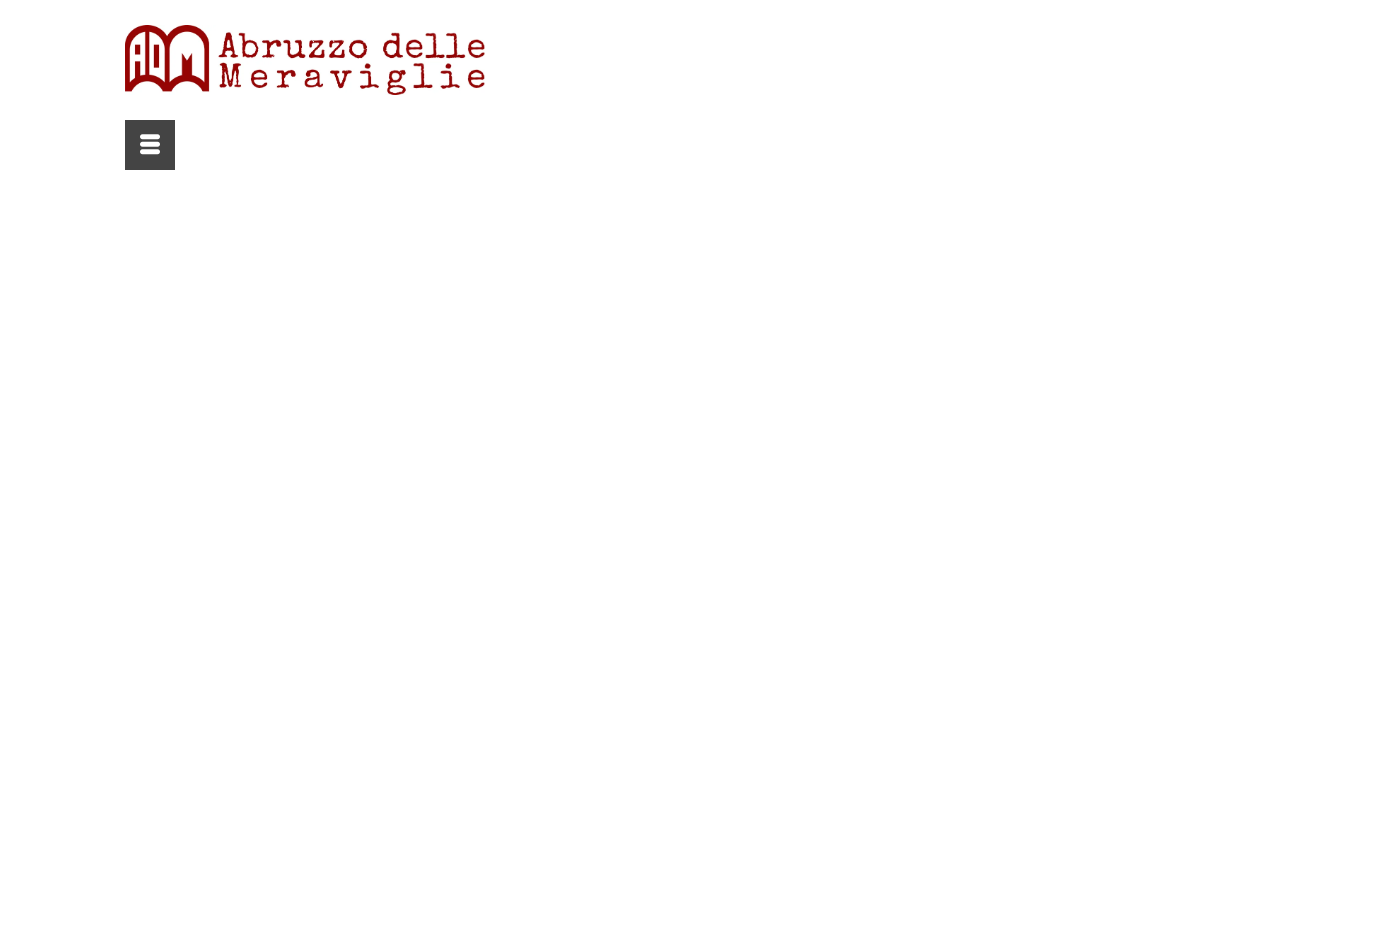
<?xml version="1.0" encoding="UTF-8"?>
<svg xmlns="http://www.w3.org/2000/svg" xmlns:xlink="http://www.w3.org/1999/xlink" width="1390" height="947">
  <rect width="100%" height="100%" fill="#ffffff" />
  <image x="125" y="25" width="360" height="70" xlink:href="image1.png" />
  <rect x="125" y="120" width="50" height="50" fill="#444444" />
  <image x="140" y="134" width="20" height="21" xlink:href="image2.png" />
</svg>
